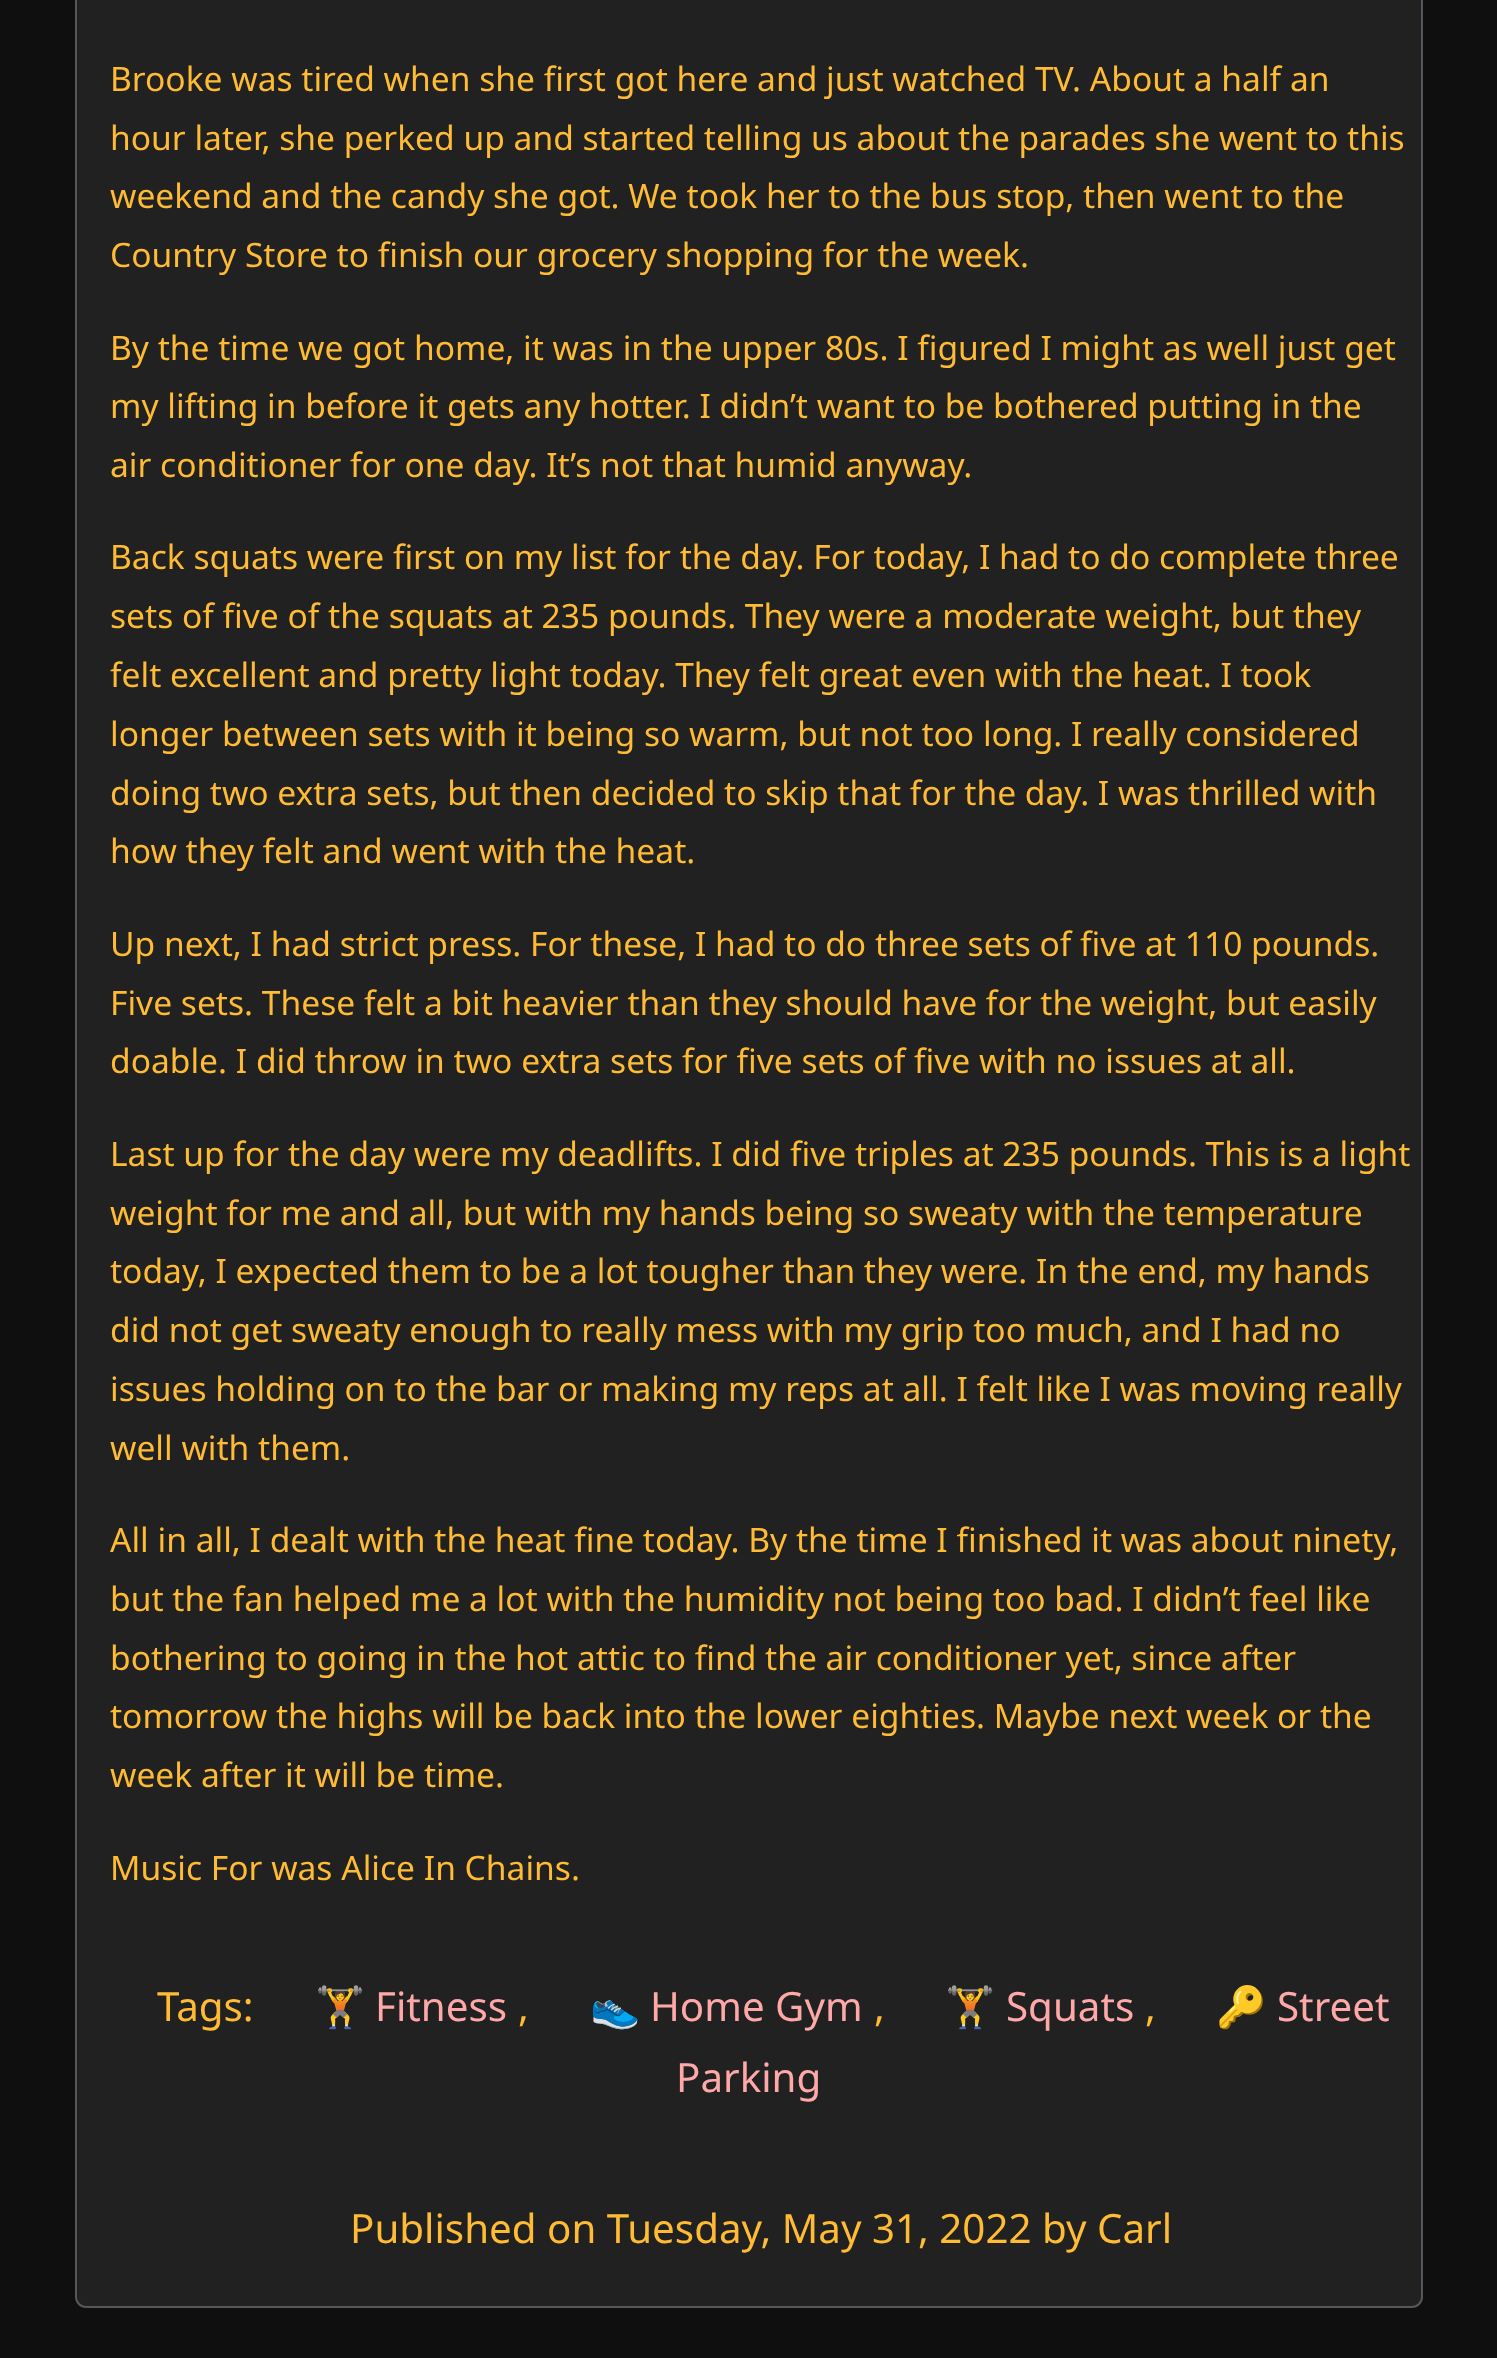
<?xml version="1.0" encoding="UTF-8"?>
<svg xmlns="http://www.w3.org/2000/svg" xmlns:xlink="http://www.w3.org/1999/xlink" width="1497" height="2358">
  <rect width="100%" height="100%" fill="#0f0f0f" />
  <rect x="76" y="-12" width="1346" height="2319" rx="10" fill="#212121" stroke="#56565d" stroke-width="2" />
  <text x="110" y="91" style="font-family: Noto Sans; font-size: 33.6px; fill: #ffbb33">Brooke was tired when she first got here and just watched TV. About a half an</text>
  <text x="110" y="150" style="font-family: Noto Sans; font-size: 33.6px; fill: #ffbb33">hour later, she perked up and started telling us about the parades she went to this</text>
  <text x="110" y="208" style="font-family: Noto Sans; font-size: 33.6px; fill: #ffbb33">weekend and the candy she got. We took her to the bus stop, then went to the</text>
  <text x="110" y="267" style="font-family: Noto Sans; font-size: 33.6px; fill: #ffbb33">Country Store to finish our grocery shopping for the week.</text>
  <text x="110" y="360" style="font-family: Noto Sans; font-size: 33.6px; fill: #ffbb33">By the time we got home, it was in the upper 80s. I figured I might as well just get</text>
  <text x="110" y="418" style="font-family: Noto Sans; font-size: 33.6px; fill: #ffbb33">my lifting in before it gets any hotter. I didn’t want to be bothered putting in the</text>
  <text x="110" y="477" style="font-family: Noto Sans; font-size: 33.6px; fill: #ffbb33">air conditioner for one day. It’s not that humid anyway.</text>
  <text x="110" y="569" style="font-family: Noto Sans; font-size: 33.6px; fill: #ffbb33">Back squats were first on my list for the day. For today, I had to do complete three</text>
  <text x="110" y="628" style="font-family: Noto Sans; font-size: 33.6px; fill: #ffbb33">sets of five of the squats at 235 pounds. They were a moderate weight, but they</text>
  <text x="110" y="687" style="font-family: Noto Sans; font-size: 33.6px; fill: #ffbb33">felt excellent and pretty light today. They felt great even with the heat. I took</text>
  <text x="110" y="746" style="font-family: Noto Sans; font-size: 33.6px; fill: #ffbb33">longer between sets with it being so warm, but not too long. I really considered</text>
  <text x="110" y="805" style="font-family: Noto Sans; font-size: 33.6px; fill: #ffbb33">doing two extra sets, but then decided to skip that for the day. I was thrilled with</text>
  <text x="110" y="863" style="font-family: Noto Sans; font-size: 33.6px; fill: #ffbb33">how they felt and went with the heat.</text>
  <text x="110" y="956" style="font-family: Noto Sans; font-size: 33.6px; fill: #ffbb33">Up next, I had strict press. For these, I had to do three sets of five at 110 pounds.</text>
  <text x="110" y="1015" style="font-family: Noto Sans; font-size: 33.6px; fill: #ffbb33">Five sets. These felt a bit heavier than they should have for the weight, but easily</text>
  <text x="110" y="1073" style="font-family: Noto Sans; font-size: 33.6px; fill: #ffbb33">doable. I did throw in two extra sets for five sets of five with no issues at all.</text>
  <text x="110" y="1166" style="font-family: Noto Sans; font-size: 33.6px; fill: #ffbb33">Last up for the day were my deadlifts. I did five triples at 235 pounds. This is a light</text>
  <text x="110" y="1225" style="font-family: Noto Sans; font-size: 33.6px; fill: #ffbb33">weight for me and all, but with my hands being so sweaty with the temperature</text>
  <text x="110" y="1283" style="font-family: Noto Sans; font-size: 33.6px; fill: #ffbb33">today, I expected them to be a lot tougher than they were. In the end, my hands</text>
  <text x="110" y="1342" style="font-family: Noto Sans; font-size: 33.6px; fill: #ffbb33">did not get sweaty enough to really mess with my grip too much, and I had no</text>
  <text x="110" y="1401" style="font-family: Noto Sans; font-size: 33.6px; fill: #ffbb33">issues holding on to the bar or making my reps at all. I felt like I was moving really</text>
  <text x="110" y="1460" style="font-family: Noto Sans; font-size: 33.6px; fill: #ffbb33">well with them.</text>
  <text x="110" y="1552" style="font-family: Noto Sans; font-size: 33.6px; fill: #ffbb33">All in all, I dealt with the heat fine today. By the time I finished it was about ninety,</text>
  <text x="110" y="1611" style="font-family: Noto Sans; font-size: 33.6px; fill: #ffbb33">but the fan helped me a lot with the humidity not being too bad. I didn’t feel like</text>
  <text x="110" y="1670" style="font-family: Noto Sans; font-size: 33.6px; fill: #ffbb33">bothering to going in the hot attic to find the air conditioner yet, since after</text>
  <text x="110" y="1728" style="font-family: Noto Sans; font-size: 33.6px; fill: #ffbb33">tomorrow the highs will be back into the lower eighties. Maybe next week or the</text>
  <text x="110" y="1787" style="font-family: Noto Sans; font-size: 33.6px; fill: #ffbb33">week after it will be time.</text>
  <text x="110" y="1880" style="font-family: Noto Sans; font-size: 33.6px; fill: #ffbb33">Music For was Alice In Chains.</text>
  <text x="157" y="2021" style="font-family: Noto Sans; font-size: 40.3px; fill: #ffbb33">Tags:</text>
  <text x="315" y="2021" style="font-family: Noto Color Emoji; font-size: 40.3px; fill: #ffa8a8">🏋</text>
  <text x="375" y="2021" style="font-family: Noto Sans; font-size: 40.3px; fill: #ffa8a8">Fitness</text>
  <text x="518" y="2021" style="font-family: Noto Sans; font-size: 40.3px; fill: #ffbb33">,</text>
  <text x="590" y="2021" style="font-family: Noto Color Emoji; font-size: 40.3px; fill: #ffa8a8">👟</text>
  <text x="650" y="2021" style="font-family: Noto Sans; font-size: 40.3px; fill: #ffa8a8">Home Gym</text>
  <text x="874" y="2021" style="font-family: Noto Sans; font-size: 40.3px; fill: #ffbb33">,</text>
  <text x="945" y="2021" style="font-family: Noto Color Emoji; font-size: 40.3px; fill: #ffa8a8">🏋</text>
  <text x="1006" y="2021" style="font-family: Noto Sans; font-size: 40.3px; fill: #ffa8a8">Squats</text>
  <text x="1145" y="2021" style="font-family: Noto Sans; font-size: 40.3px; fill: #ffbb33">,</text>
  <text x="1216" y="2021" style="font-family: Noto Color Emoji; font-size: 40.3px; fill: #ffa8a8">🔑</text>
  <text x="1277" y="2021" style="font-family: Noto Sans; font-size: 40.3px; fill: #ffa8a8">Street</text>
  <text x="676" y="2092" style="font-family: Noto Sans; font-size: 40.3px; fill: #ffa8a8">Parking</text>
  <text x="350" y="2243" style="font-family: Noto Sans; font-size: 40.3px; fill: #ffbb33">Published on Tuesday, May 31, 2022 by Carl</text>
</svg>
